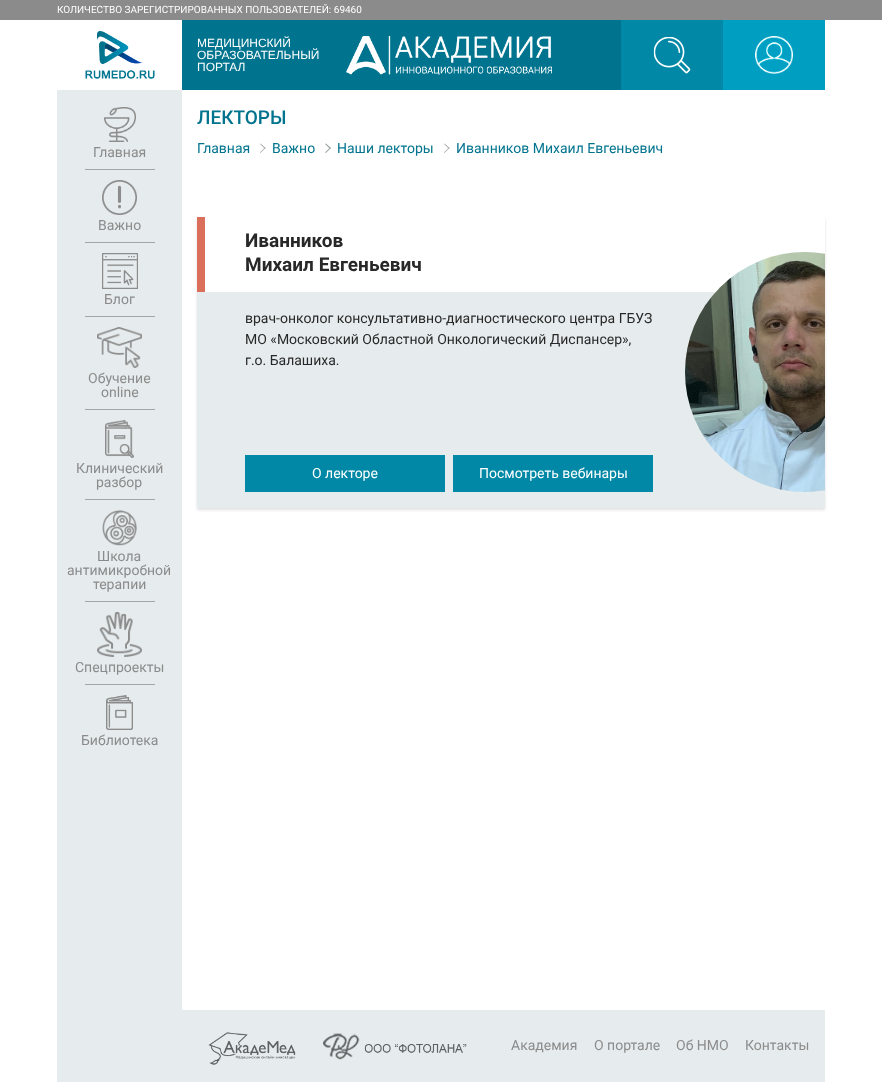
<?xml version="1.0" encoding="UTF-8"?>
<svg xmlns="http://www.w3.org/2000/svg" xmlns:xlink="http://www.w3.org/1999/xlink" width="882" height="1082">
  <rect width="100%" height="100%" fill="#ffffff" />
  <rect width="882" height="20" fill="#8b8b8b" />
  <rect x="182" y="20" width="439" height="70" fill="#00748e" />
  <image x="85" y="31" width="70" height="48" xlink:href="image1.png" />
  <image x="346" y="36" width="206" height="39" xlink:href="image2.png" />
  <rect x="621" y="20" width="102" height="70" fill="#0088a6" />
  <image x="653" y="36" width="38" height="38" xlink:href="image3.png" />
  <rect x="723" y="20" width="102" height="70" fill="#009ec1" />
  <image x="755" y="36" width="38" height="38" xlink:href="image4.png" />
  <rect x="57" y="90" width="125" height="992" fill="#e6eced" />
  <image x="104" y="107" width="32" height="35" xlink:href="image5.png" />
  <rect x="85" y="169" width="70" height="1" fill="#a1a7a8" />
  <image x="102" y="180" width="35" height="35" xlink:href="image6.png" />
  <rect x="85" y="242" width="70" height="1" fill="#a1a7a8" />
  <image x="102" y="253" width="36" height="36" xlink:href="image7.png" />
  <rect x="85" y="316" width="70" height="1" fill="#a1a7a8" />
  <image x="97" y="327" width="45" height="41" xlink:href="image8.png" />
  <rect x="85" y="409" width="70" height="1" fill="#a1a7a8" />
  <image x="105" y="420" width="29" height="38" xlink:href="image9.png" />
  <rect x="85" y="499" width="70" height="1" fill="#a1a7a8" />
  <image x="102" y="510" width="35" height="36" xlink:href="image10.png" />
  <rect x="85" y="601" width="70" height="1" fill="#a1a7a8" />
  <image x="97" y="612" width="45" height="45" xlink:href="image11.png" />
  <rect x="85" y="684" width="70" height="1" fill="#a1a7a8" />
  <image x="106" y="695" width="27" height="35" xlink:href="image12.png" />
  <path d="M 260.5 143.5 l 5 4.5 l -0.5 1 l -5 -5 z" fill="#a1a7a8" />
  <path d="M 265 147.5 l 0.5 0.5 l -5 5 l -0.5 -0.5 z" fill="#a1a7a8" />
  <path d="M 326 143.5 l 5 4.5 l -1 1 l -5 -5 z" fill="#a1a7a8" />
  <path d="M 330 147.5 l 1 0.5 l -5 5 l -1 -0.5 z" fill="#a1a7a8" />
  <path d="M 444.5 143.5 l 5 4.5 l -0.5 1 l -5 -5 z" fill="#a1a7a8" />
  <path d="M 449 147.5 l 0.5 0.5 l -5 5 l -0.5 -0.5 z" fill="#a1a7a8" />
  <rect x="197" y="219" width="628" height="291" fill="#333333" fill-opacity="0.15" filter="blur(1.5px)" />
  <rect x="197" y="292" width="628" height="216" fill="#e6eced" />
  <rect x="205" y="217" width="620" height="75" fill="#ffffff" />
  <rect x="197" y="217" width="8" height="75" fill="#da6f5b" />
  <rect x="245" y="455" width="200" height="37" fill="#0088a6" />
  <rect x="453" y="455" width="200" height="37" fill="#0088a6" />
  <image x="685" y="252" width="140" height="240" xlink:href="image13.png" />
  <rect x="182" y="1010" width="643" height="72" fill="#e6eced" />
  <image x="208" y="1032" width="259" height="33" xlink:href="image14.png" />
  <text x="57" y="13" style="font-family: Roboto; font-size: 10px; fill: #ffffff">КОЛИЧЕСТВО ЗАРЕГИСТРИРОВАННЫХ ПОЛЬЗОВАТЕЛЕЙ: 69460</text>
  <text x="197" y="47" style="font-family: Liberation Sans; font-size: 12px; fill: #ffffff">МЕДИЦИНСКИЙ</text>
  <text x="197" y="59" style="font-family: Liberation Sans; font-size: 12px; fill: #ffffff">ОБРАЗОВАТЕЛЬНЫЙ</text>
  <text x="197" y="71" style="font-family: Liberation Sans; font-size: 12px; fill: #ffffff">ПОРТАЛ</text>
  <text x="93" y="157" style="font-family: Roboto; font-size: 14px; fill: #8b8b8b">Главная</text>
  <text x="98" y="230" style="font-family: Roboto; font-size: 14px; fill: #8b8b8b">Важно</text>
  <text x="104" y="304" style="font-family: Roboto; font-size: 14px; fill: #8b8b8b">Блог</text>
  <text x="88" y="383" style="font-family: Roboto; font-size: 14px; fill: #8b8b8b">Обучение</text>
  <text x="101" y="397" style="font-family: Roboto; font-size: 14px; fill: #8b8b8b">online</text>
  <text x="76" y="473" style="font-family: Roboto; font-size: 14px; fill: #8b8b8b">Клинический</text>
  <text x="96" y="487" style="font-family: Roboto; font-size: 14px; fill: #8b8b8b">разбор</text>
  <text x="97" y="561" style="font-family: Roboto; font-size: 14px; fill: #8b8b8b">Школа</text>
  <text x="67" y="575" style="font-family: Roboto; font-size: 14px; fill: #8b8b8b">антимикробной</text>
  <text x="93" y="589" style="font-family: Roboto; font-size: 14px; fill: #8b8b8b">терапии</text>
  <text x="75" y="672" style="font-family: Roboto; font-size: 14px; fill: #8b8b8b">Спецпроекты</text>
  <text x="81" y="745" style="font-family: Roboto; font-size: 14px; fill: #8b8b8b">Библиотека</text>
  <text x="197" y="124" style="font-family: Roboto; font-size: 19px; font-weight: 500; fill: #00748e">ЛЕКТОРЫ</text>
  <text x="197" y="153" style="font-family: Roboto; font-size: 14px; fill: #00748e">Главная</text>
  <text x="272" y="153" style="font-family: Roboto; font-size: 14px; fill: #00748e">Важно</text>
  <text x="337" y="153" style="font-family: Roboto; font-size: 14px; fill: #00748e">Наши лекторы</text>
  <text x="456" y="153" style="font-family: Roboto; font-size: 14px; fill: #00748e">Иванников Михаил Евгеньевич</text>
  <text x="245" y="247" style="font-family: Roboto; font-size: 19px; font-weight: bold; fill: #282828">Иванников</text>
  <text x="245" y="271" style="font-family: Roboto; font-size: 19px; font-weight: bold; fill: #282828">Михаил Евгеньевич</text>
  <text x="245" y="323" style="font-family: Roboto; font-size: 14px; fill: #282828">врач-онколог консультативно-диагностического центра ГБУЗ</text>
  <text x="245" y="344" style="font-family: Roboto; font-size: 14px; fill: #282828">МО «Московский Областной Онкологический Диспансер»,</text>
  <text x="245" y="365" style="font-family: Roboto; font-size: 14px; fill: #282828">г.о. Балашиха.</text>
  <text x="312" y="478" style="font-family: Roboto; font-size: 14px; fill: #ffffff">О лекторе</text>
  <text x="479" y="478" style="font-family: Roboto; font-size: 14px; fill: #ffffff">Посмотреть вебинары</text>
  <text x="511" y="1050" style="font-family: Roboto; font-size: 14px; fill: #8b8b8b">Академия</text>
  <text x="594" y="1050" style="font-family: Roboto; font-size: 14px; fill: #8b8b8b">О портале</text>
  <text x="676" y="1050" style="font-family: Roboto; font-size: 14px; fill: #8b8b8b">Об НМО</text>
  <text x="745" y="1050" style="font-family: Roboto; font-size: 14px; fill: #8b8b8b">Контакты</text>
</svg>
